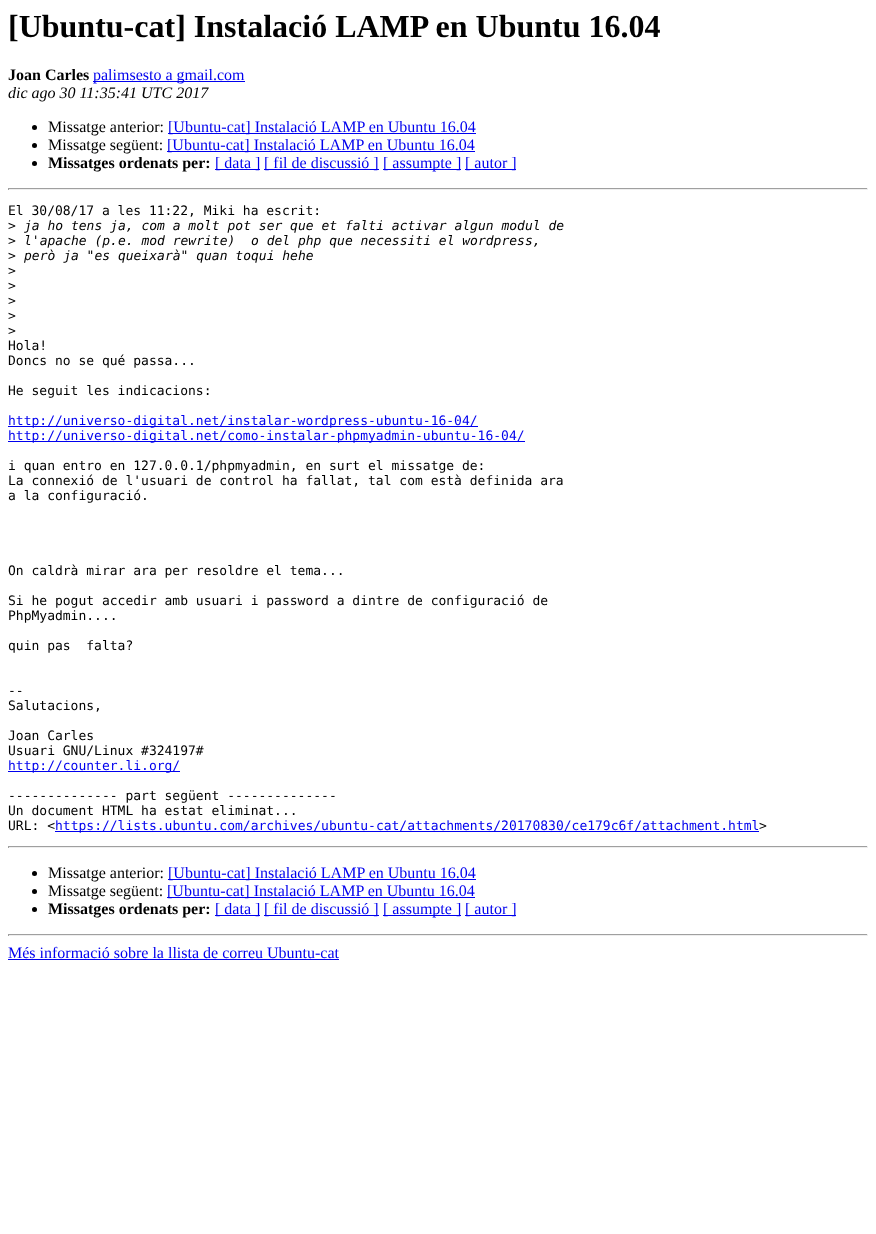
<?xml version="1.0" encoding="UTF-8"?>
<svg xmlns="http://www.w3.org/2000/svg" xmlns:xlink="http://www.w3.org/1999/xlink" width="876" height="1234">
  <rect width="100%" height="100%" fill="#ffffff" />
  <rect x="93" y="81" width="152" height="1" fill="#0000ee" />
  <circle cx="34.5" cy="127.5" r="2.5" fill="#000000" />
  <rect x="168" y="133" width="308" height="1" fill="#0000ee" />
  <circle cx="34.5" cy="145.5" r="2.5" fill="#000000" />
  <rect x="167" y="151" width="308" height="1" fill="#0000ee" />
  <circle cx="34.5" cy="163.5" r="2.5" fill="#000000" />
  <rect x="215" y="169" width="45" height="1" fill="#0000ee" />
  <rect x="264" y="169" width="115" height="1" fill="#0000ee" />
  <rect x="383" y="169" width="78" height="1" fill="#0000ee" />
  <rect x="465" y="169" width="51" height="1" fill="#0000ee" />
  <rect x="8" y="188" width="860" height="1" fill="#9f9f9f" />
  <rect x="867" y="188" width="1" height="2" fill="#eeeeee" />
  <rect x="8" y="189" width="860" height="1" fill="#eeeeee" />
  <rect x="8" y="188" width="1" height="2" fill="#9f9f9f" />
  <rect x="8" y="426" width="470" height="1" fill="#0000ee" />
  <rect x="8" y="441" width="517" height="1" fill="#0000ee" />
  <rect x="8" y="771" width="172" height="1" fill="#0000ee" />
  <rect x="55" y="831" width="704" height="1" fill="#0000ee" />
  <rect x="8" y="846" width="860" height="1" fill="#9f9f9f" />
  <rect x="867" y="846" width="1" height="2" fill="#eeeeee" />
  <rect x="8" y="847" width="860" height="1" fill="#eeeeee" />
  <rect x="8" y="846" width="1" height="2" fill="#9f9f9f" />
  <circle cx="34.5" cy="873.5" r="2.5" fill="#000000" />
  <rect x="168" y="879" width="308" height="1" fill="#0000ee" />
  <circle cx="34.5" cy="891.5" r="2.5" fill="#000000" />
  <rect x="167" y="897" width="308" height="1" fill="#0000ee" />
  <circle cx="34.5" cy="909.5" r="2.5" fill="#000000" />
  <rect x="215" y="915" width="45" height="1" fill="#0000ee" />
  <rect x="264" y="915" width="115" height="1" fill="#0000ee" />
  <rect x="383" y="915" width="78" height="1" fill="#0000ee" />
  <rect x="465" y="915" width="51" height="1" fill="#0000ee" />
  <rect x="8" y="934" width="860" height="1" fill="#9f9f9f" />
  <rect x="867" y="934" width="1" height="2" fill="#eeeeee" />
  <rect x="8" y="935" width="860" height="1" fill="#eeeeee" />
  <rect x="8" y="934" width="1" height="2" fill="#9f9f9f" />
  <rect x="8" y="959" width="331" height="1" fill="#0000ee" />
  <text x="8" y="37" style="font-family: Liberation Serif; font-size: 32px; font-weight: bold; fill: #000000">[Ubuntu-cat] Instalació LAMP en Ubuntu 16.04</text>
  <text x="8" y="80" style="font-family: Liberation Serif; font-size: 16px; font-weight: bold; fill: #000000">Joan Carles</text>
  <text x="93" y="80" style="font-family: Liberation Serif; font-size: 16px; fill: #0000ee">palimsesto a gmail.com</text>
  <text x="8" y="98" style="font-family: Liberation Serif; font-size: 16px; font-style: italic; fill: #000000">dic ago 30 11:35:41 UTC 2017</text>
  <text x="48" y="132" style="font-family: Liberation Serif; font-size: 16px; fill: #000000">Missatge anterior:</text>
  <text x="168" y="132" style="font-family: Liberation Serif; font-size: 16px; fill: #0000ee">[Ubuntu-cat] Instalació LAMP en Ubuntu 16.04</text>
  <text x="48" y="150" style="font-family: Liberation Serif; font-size: 16px; fill: #000000">Missatge següent:</text>
  <text x="167" y="150" style="font-family: Liberation Serif; font-size: 16px; fill: #0000ee">[Ubuntu-cat] Instalació LAMP en Ubuntu 16.04</text>
  <text x="48" y="168" style="font-family: Liberation Serif; font-size: 16px; font-weight: bold; fill: #000000">Missatges ordenats per:</text>
  <text x="215" y="168" style="font-family: Liberation Serif; font-size: 16px; fill: #0000ee">[ data ]</text>
  <text x="264" y="168" style="font-family: Liberation Serif; font-size: 16px; fill: #0000ee">[ fil de discussió ]</text>
  <text x="383" y="168" style="font-family: Liberation Serif; font-size: 16px; fill: #0000ee">[ assumpte ]</text>
  <text x="465" y="168" style="font-family: Liberation Serif; font-size: 16px; fill: #0000ee">[ autor ]</text>
  <text x="8" y="215" style="font-family: DejaVu Sans Mono; font-size: 13px; fill: #000000">El 30/08/17 a les 11:22, Miki ha escrit:</text>
  <text x="8" y="230" style="font-family: DejaVu Sans Mono; font-size: 13px; fill: #000000">&gt;</text>
  <text x="24" y="230" style="font-family: DejaVu Sans Mono; font-size: 13px; font-style: italic; fill: #000000">ja ho tens ja, com a molt pot ser que et falti activar algun modul de</text>
  <text x="8" y="245" style="font-family: DejaVu Sans Mono; font-size: 13px; fill: #000000">&gt;</text>
  <text x="24" y="245" style="font-family: DejaVu Sans Mono; font-size: 13px; font-style: italic; fill: #000000" xml:space="preserve">l'apache (p.e. mod rewrite)  o del php que necessiti el wordpress,</text>
  <text x="8" y="260" style="font-family: DejaVu Sans Mono; font-size: 13px; fill: #000000">&gt;</text>
  <text x="24" y="260" style="font-family: DejaVu Sans Mono; font-size: 13px; font-style: italic; fill: #000000">però ja "es queixarà" quan toqui hehe</text>
  <text x="8" y="275" style="font-family: DejaVu Sans Mono; font-size: 13px; fill: #000000">&gt;</text>
  <text x="8" y="290" style="font-family: DejaVu Sans Mono; font-size: 13px; fill: #000000">&gt;</text>
  <text x="8" y="305" style="font-family: DejaVu Sans Mono; font-size: 13px; fill: #000000">&gt;</text>
  <text x="8" y="320" style="font-family: DejaVu Sans Mono; font-size: 13px; fill: #000000">&gt;</text>
  <text x="8" y="335" style="font-family: DejaVu Sans Mono; font-size: 13px; fill: #000000">&gt;</text>
  <text x="8" y="350" style="font-family: DejaVu Sans Mono; font-size: 13px; fill: #000000">Hola!</text>
  <text x="8" y="365" style="font-family: DejaVu Sans Mono; font-size: 13px; fill: #000000">Doncs no se qué passa...</text>
  <text x="8" y="395" style="font-family: DejaVu Sans Mono; font-size: 13px; fill: #000000">He seguit les indicacions:</text>
  <text x="8" y="425" style="font-family: DejaVu Sans Mono; font-size: 13px; fill: #0000ee">http://universo-digital.net/instalar-wordpress-ubuntu-16-04/</text>
  <text x="8" y="440" style="font-family: DejaVu Sans Mono; font-size: 13px; fill: #0000ee">http://universo-digital.net/como-instalar-phpmyadmin-ubuntu-16-04/</text>
  <text x="8" y="470" style="font-family: DejaVu Sans Mono; font-size: 13px; fill: #000000">i quan entro en 127.0.0.1/phpmyadmin, en surt el missatge de:</text>
  <text x="8" y="485" style="font-family: DejaVu Sans Mono; font-size: 13px; fill: #000000">La connexió de l'usuari de control ha fallat, tal com està definida ara</text>
  <text x="8" y="500" style="font-family: DejaVu Sans Mono; font-size: 13px; fill: #000000">a la configuració.</text>
  <text x="8" y="575" style="font-family: DejaVu Sans Mono; font-size: 13px; fill: #000000">On caldrà mirar ara per resoldre el tema...</text>
  <text x="8" y="605" style="font-family: DejaVu Sans Mono; font-size: 13px; fill: #000000">Si he pogut accedir amb usuari i password a dintre de configuració de</text>
  <text x="8" y="620" style="font-family: DejaVu Sans Mono; font-size: 13px; fill: #000000">PhpMyadmin....</text>
  <text x="8" y="650" style="font-family: DejaVu Sans Mono; font-size: 13px; fill: #000000" xml:space="preserve">quin pas  falta?</text>
  <text x="8" y="695" style="font-family: DejaVu Sans Mono; font-size: 13px; fill: #000000">--</text>
  <text x="8" y="710" style="font-family: DejaVu Sans Mono; font-size: 13px; fill: #000000">Salutacions,</text>
  <text x="8" y="740" style="font-family: DejaVu Sans Mono; font-size: 13px; fill: #000000">Joan Carles</text>
  <text x="8" y="755" style="font-family: DejaVu Sans Mono; font-size: 13px; fill: #000000">Usuari GNU/Linux #324197#</text>
  <text x="8" y="770" style="font-family: DejaVu Sans Mono; font-size: 13px; fill: #0000ee">http://counter.li.org/</text>
  <text x="8" y="800" style="font-family: DejaVu Sans Mono; font-size: 13px; fill: #000000">-------------- part següent --------------</text>
  <text x="8" y="815" style="font-family: DejaVu Sans Mono; font-size: 13px; fill: #000000">Un document HTML ha estat eliminat...</text>
  <text x="8" y="830" style="font-family: DejaVu Sans Mono; font-size: 13px; fill: #000000">URL: &lt;</text>
  <text x="55" y="830" style="font-family: DejaVu Sans Mono; font-size: 13px; fill: #0000ee">https://lists.ubuntu.com/archives/ubuntu-cat/attachments/20170830/ce179c6f/attachment.html</text>
  <text x="759" y="830" style="font-family: DejaVu Sans Mono; font-size: 13px; fill: #000000">&gt;</text>
  <text x="48" y="878" style="font-family: Liberation Serif; font-size: 16px; fill: #000000">Missatge anterior:</text>
  <text x="168" y="878" style="font-family: Liberation Serif; font-size: 16px; fill: #0000ee">[Ubuntu-cat] Instalació LAMP en Ubuntu 16.04</text>
  <text x="48" y="896" style="font-family: Liberation Serif; font-size: 16px; fill: #000000">Missatge següent:</text>
  <text x="167" y="896" style="font-family: Liberation Serif; font-size: 16px; fill: #0000ee">[Ubuntu-cat] Instalació LAMP en Ubuntu 16.04</text>
  <text x="48" y="914" style="font-family: Liberation Serif; font-size: 16px; font-weight: bold; fill: #000000">Missatges ordenats per:</text>
  <text x="215" y="914" style="font-family: Liberation Serif; font-size: 16px; fill: #0000ee">[ data ]</text>
  <text x="264" y="914" style="font-family: Liberation Serif; font-size: 16px; fill: #0000ee">[ fil de discussió ]</text>
  <text x="383" y="914" style="font-family: Liberation Serif; font-size: 16px; fill: #0000ee">[ assumpte ]</text>
  <text x="465" y="914" style="font-family: Liberation Serif; font-size: 16px; fill: #0000ee">[ autor ]</text>
  <text x="8" y="958" style="font-family: Liberation Serif; font-size: 16px; fill: #0000ee">Més informació sobre la llista de correu Ubuntu-cat</text>
</svg>
